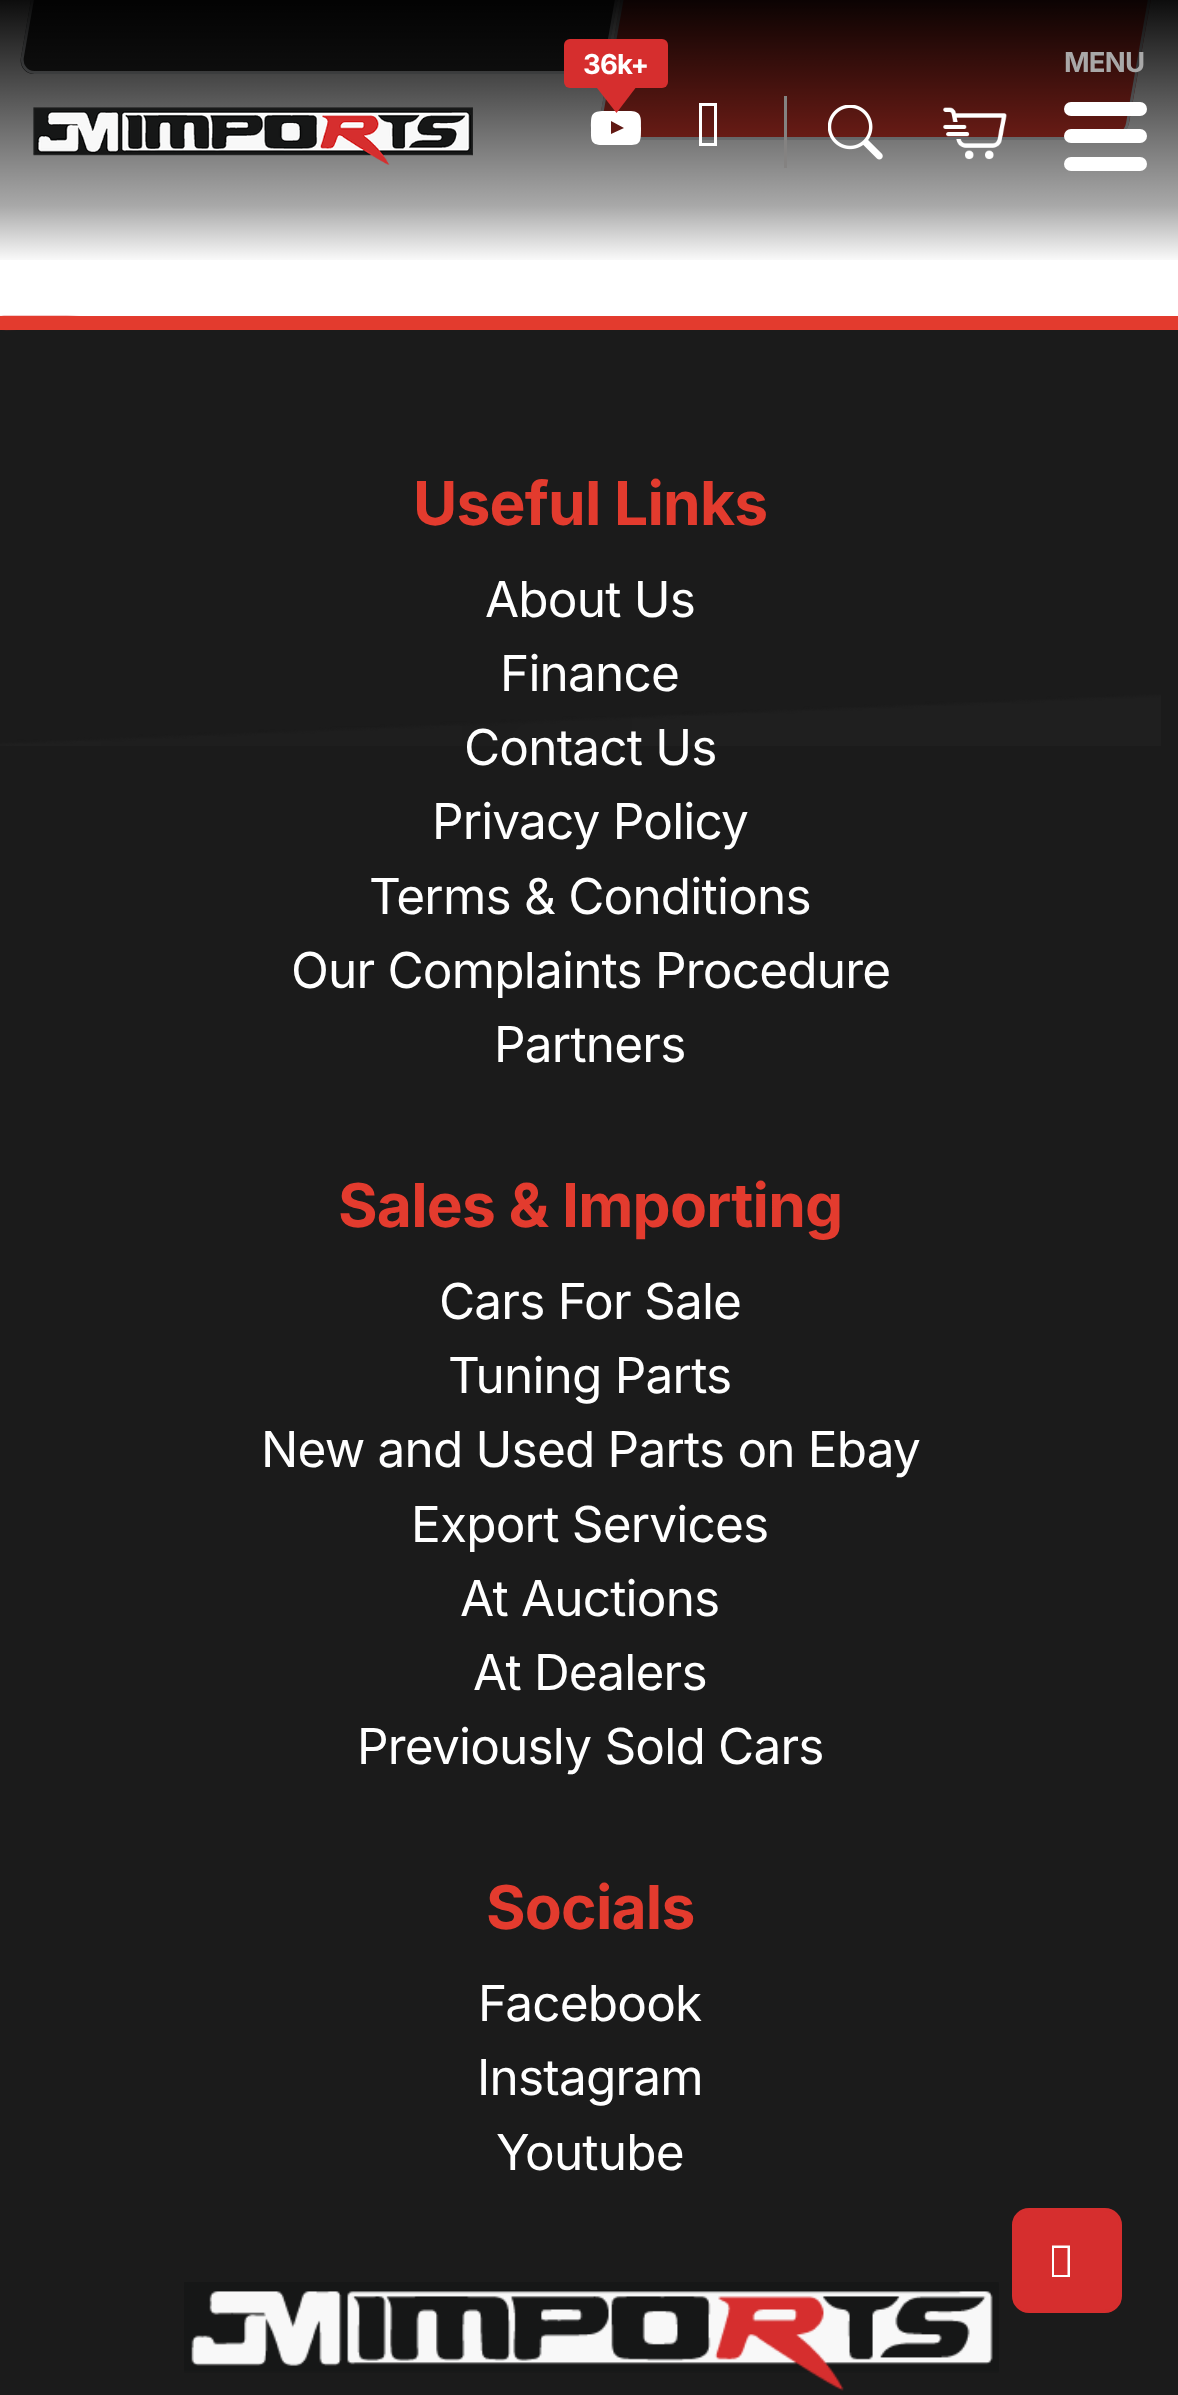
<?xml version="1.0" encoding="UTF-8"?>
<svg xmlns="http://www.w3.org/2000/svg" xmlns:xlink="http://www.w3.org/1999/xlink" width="1178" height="2395">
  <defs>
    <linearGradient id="g1" gradientUnits="userSpaceOnUse" x1="590" y1="0" x2="590" y2="264"><stop offset="0" stop-color="#000000" stop-opacity="0.95" /><stop offset="0.78" stop-color="#000000" stop-opacity="0.34" /><stop offset="1" stop-color="#000000" stop-opacity="0" /></linearGradient>
  </defs>
  <rect width="100%" height="100%" fill="#ffffff" />
  <path d="M 65 -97 h 570 l -31 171 h -570 c -9 0 -15 -8 -13 -17 l 24 -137 c 2 -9 10 -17 20 -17 z" fill="#333333" />
  <path d="M 64.5 -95.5 h 568.5 l -29.5 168 h -569 c -8 0 -13.5 -7 -12 -15.5 l 24 -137.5 c 1.5 -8 9.5 -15 18 -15 z" fill="none" stroke="#dee2e6" stroke-width="2.8" />
  <path d="M 638 -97 h 513 c 9 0 15 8 14 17 l -36 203 c -2 9 -10 17 -20 17 h -513 z" fill="#e33b2e" />
  <path d="M 639 -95.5 h 512 c 8 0 14 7 12.5 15 l -36 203.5 c -1.5 8.5 -9.5 15.5 -18 15.5 h -512 z" fill="none" stroke="#dee2e6" stroke-width="2.8" />
  <rect width="1178" height="260" fill="url(#g1)" />
  <rect x="564" y="39" width="104" height="49" rx="6" fill="#d62e2e" />
  <path d="M 611 134 l 13 -6 l -13 -7 z m 5 -23 h 15 c 11 1 10 7 10 17 c 0 13 0 17 -11 17 h -28 c -12 0 -11 -6 -11 -17 c 0 -13 0 -16 11 -17 z" fill="#ffffff" />
  <path d="M 597 88 h 38.5 l -19 25 z" fill="#d62e2e" />
  <path d="M 702 143 h 12 v -37 h -12 z m -3 3 v -43 h 18 v 43 z" fill="#ffffff" />
  <rect x="784" y="96" width="3" height="72" fill="#848281" />
  <image x="828" y="105" width="55" height="55" xlink:href="image1.png" />
  <image x="943" y="107" width="64" height="53" xlink:href="image2.png" />
  <rect x="1064" y="102" width="83" height="14" rx="7" fill="#ffffff" />
  <rect x="1064" y="129" width="83" height="14" rx="7" fill="#ffffff" />
  <rect x="1064" y="157" width="83" height="14" rx="7" fill="#ffffff" />
  <image x="33" y="107" width="440" height="58" xlink:href="image3.png" />
  <rect y="330" width="1178" height="2065" fill="#1b1b1b" />
  <image x="0" y="315" width="1161" height="431" xlink:href="image4.png" />
  <rect y="316" width="1178" height="14" fill="#e33b2e" />
  <image x="184" y="2282" width="815" height="109" xlink:href="image5.png" />
  <rect x="1013.5" y="2209.5" width="107" height="102" rx="15.5" fill="#d62e2e" stroke="#d62e2e" stroke-width="3" />
  <path d="M 1052 2277 v -31.5 h 18 v 31.5 z m 2 -2 h 13.5 v -27 h -13.5 z" fill="#ffffff" />
  <text x="583" y="74" style="font-family: Inter; font-size: 27.5px; font-weight: bold; letter-spacing: -0.8px; fill: #ffffff">36k+</text>
  <text x="1064" y="72" style="font-family: Inter; font-size: 27.5px; font-weight: bold; letter-spacing: -0.8px; fill: #a9a8a8">MENU</text>
  <text x="413" y="525" style="font-family: Inter; font-size: 60.5px; font-weight: bold; letter-spacing: -0.8px; fill: #e33b2e">Useful Links</text>
  <text x="485" y="617" style="font-family: Inter; font-size: 49.5px; letter-spacing: -0.8px; fill: #ffffff">About Us</text>
  <text x="500" y="691" style="font-family: Inter; font-size: 49.5px; letter-spacing: -0.8px; fill: #ffffff">Finance</text>
  <text x="464" y="765" style="font-family: Inter; font-size: 49.5px; letter-spacing: -0.8px; fill: #ffffff">Contact Us</text>
  <text x="432" y="839" style="font-family: Inter; font-size: 49.5px; letter-spacing: -0.8px; fill: #ffffff">Privacy Policy</text>
  <text x="369" y="914" style="font-family: Inter; font-size: 49.5px; letter-spacing: -0.8px; fill: #ffffff">Terms &amp; Conditions</text>
  <text x="291" y="988" style="font-family: Inter; font-size: 49.5px; letter-spacing: -0.8px; fill: #ffffff">Our Complaints Procedure</text>
  <text x="494" y="1062" style="font-family: Inter; font-size: 49.5px; letter-spacing: -0.8px; fill: #ffffff">Partners</text>
  <text x="338" y="1227" style="font-family: Inter; font-size: 60.5px; font-weight: bold; letter-spacing: -0.8px; fill: #e33b2e">Sales &amp; Importing</text>
  <text x="439" y="1319" style="font-family: Inter; font-size: 49.5px; letter-spacing: -0.8px; fill: #ffffff">Cars For Sale</text>
  <text x="448" y="1393" style="font-family: Inter; font-size: 49.5px; letter-spacing: -0.8px; fill: #ffffff">Tuning Parts</text>
  <text x="261" y="1467" style="font-family: Inter; font-size: 49.5px; letter-spacing: -0.8px; fill: #ffffff">New and Used Parts on Ebay</text>
  <text x="411" y="1542" style="font-family: Inter; font-size: 49.5px; letter-spacing: -0.8px; fill: #ffffff">Export Services</text>
  <text x="460" y="1616" style="font-family: Inter; font-size: 49.5px; letter-spacing: -0.8px; fill: #ffffff">At Auctions</text>
  <text x="473" y="1690" style="font-family: Inter; font-size: 49.5px; letter-spacing: -0.8px; fill: #ffffff">At Dealers</text>
  <text x="357" y="1764" style="font-family: Inter; font-size: 49.5px; letter-spacing: -0.8px; fill: #ffffff">Previously Sold Cars</text>
  <text x="486" y="1929" style="font-family: Inter; font-size: 60.5px; font-weight: bold; letter-spacing: -0.8px; fill: #e33b2e">Socials</text>
  <text x="478" y="2021" style="font-family: Inter; font-size: 49.5px; letter-spacing: -0.8px; fill: #ffffff">Facebook</text>
  <text x="477" y="2095" style="font-family: Inter; font-size: 49.5px; letter-spacing: -0.8px; fill: #ffffff">Instagram</text>
  <text x="496" y="2170" style="font-family: Inter; font-size: 49.5px; letter-spacing: -0.8px; fill: #ffffff">Youtube</text>
</svg>
